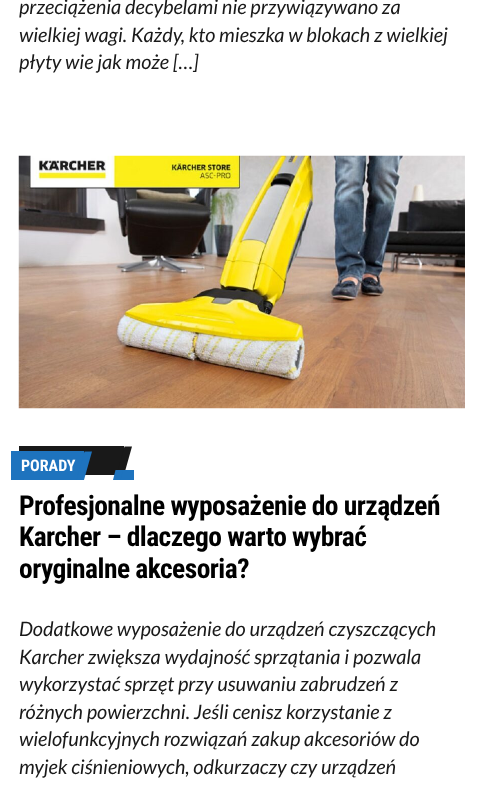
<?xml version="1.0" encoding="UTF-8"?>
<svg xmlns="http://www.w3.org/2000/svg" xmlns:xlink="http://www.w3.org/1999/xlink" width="483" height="787">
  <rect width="100%" height="100%" fill="#ffffff" />
  <image x="18" y="155" width="447" height="254" xlink:href="image1.png" />
  <rect x="19" y="446" width="105" height="29" fill="#191919" />
  <rect x="11" y="451" width="73" height="29" fill="#1e73be" />
  <path d="M 124.5 446.5 h 7.5 l -8 28.5 h -7.5 z" fill="#191919" />
  <rect x="120" y="470" width="14" height="10" fill="#1e73be" />
  <path d="M 115.5 470 h 7.5 l -2.5 10 h -7.5 z" fill="#1e73be" />
  <text x="19" y="14" style="font-family: Lato; font-size: 20px; font-style: italic; fill: #191919">przeciążenia decybelami nie przywiązywano za</text>
  <text x="19" y="42" style="font-family: Lato; font-size: 20px; font-style: italic; fill: #191919">wielkiej wagi. Każdy, kto mieszka w blokach z wielkiej</text>
  <text x="19" y="69" style="font-family: Lato; font-size: 20px; font-style: italic; fill: #191919">płyty wie jak może […]</text>
  <text x="21" y="471" style="font-family: Roboto Condensed; font-size: 16px; font-weight: bold; fill: #ffffff">PORADY</text>
  <path d="M 84.5 451.5 h 7.5 l -8 28.5 h -7.5 z" fill="#1e73be" />
  <text x="19" y="515" style="font-family: Roboto Condensed; font-size: 27.5px; font-weight: bold; letter-spacing: -0.55px; fill: #000000">Profesjonalne wyposażenie do urządzeń</text>
  <text x="19" y="546" style="font-family: Roboto Condensed; font-size: 27.5px; font-weight: bold; letter-spacing: -0.55px; fill: #000000">Karcher – dlaczego warto wybrać</text>
  <text x="19" y="578" style="font-family: Roboto Condensed; font-size: 27.5px; font-weight: bold; letter-spacing: -0.55px; fill: #000000">oryginalne akcesoria?</text>
  <text x="19" y="636" style="font-family: Lato; font-size: 20px; font-style: italic; fill: #191919">Dodatkowe wyposażenie do urządzeń czyszczących</text>
  <text x="19" y="664" style="font-family: Lato; font-size: 20px; font-style: italic; fill: #191919">Karcher zwiększa wydajność sprzątania i pozwala</text>
  <text x="19" y="691" style="font-family: Lato; font-size: 20px; font-style: italic; fill: #191919">wykorzystać sprzęt przy usuwaniu zabrudzeń z</text>
  <text x="19" y="719" style="font-family: Lato; font-size: 20px; font-style: italic; fill: #191919">różnych powierzchni. Jeśli cenisz korzystanie z</text>
  <text x="19" y="746" style="font-family: Lato; font-size: 20px; font-style: italic; fill: #191919">wielofunkcyjnych rozwiązań zakup akcesoriów do</text>
  <text x="19" y="774" style="font-family: Lato; font-size: 20px; font-style: italic; fill: #191919">myjek ciśnieniowych, odkurzaczy czy urządzeń</text>
</svg>
